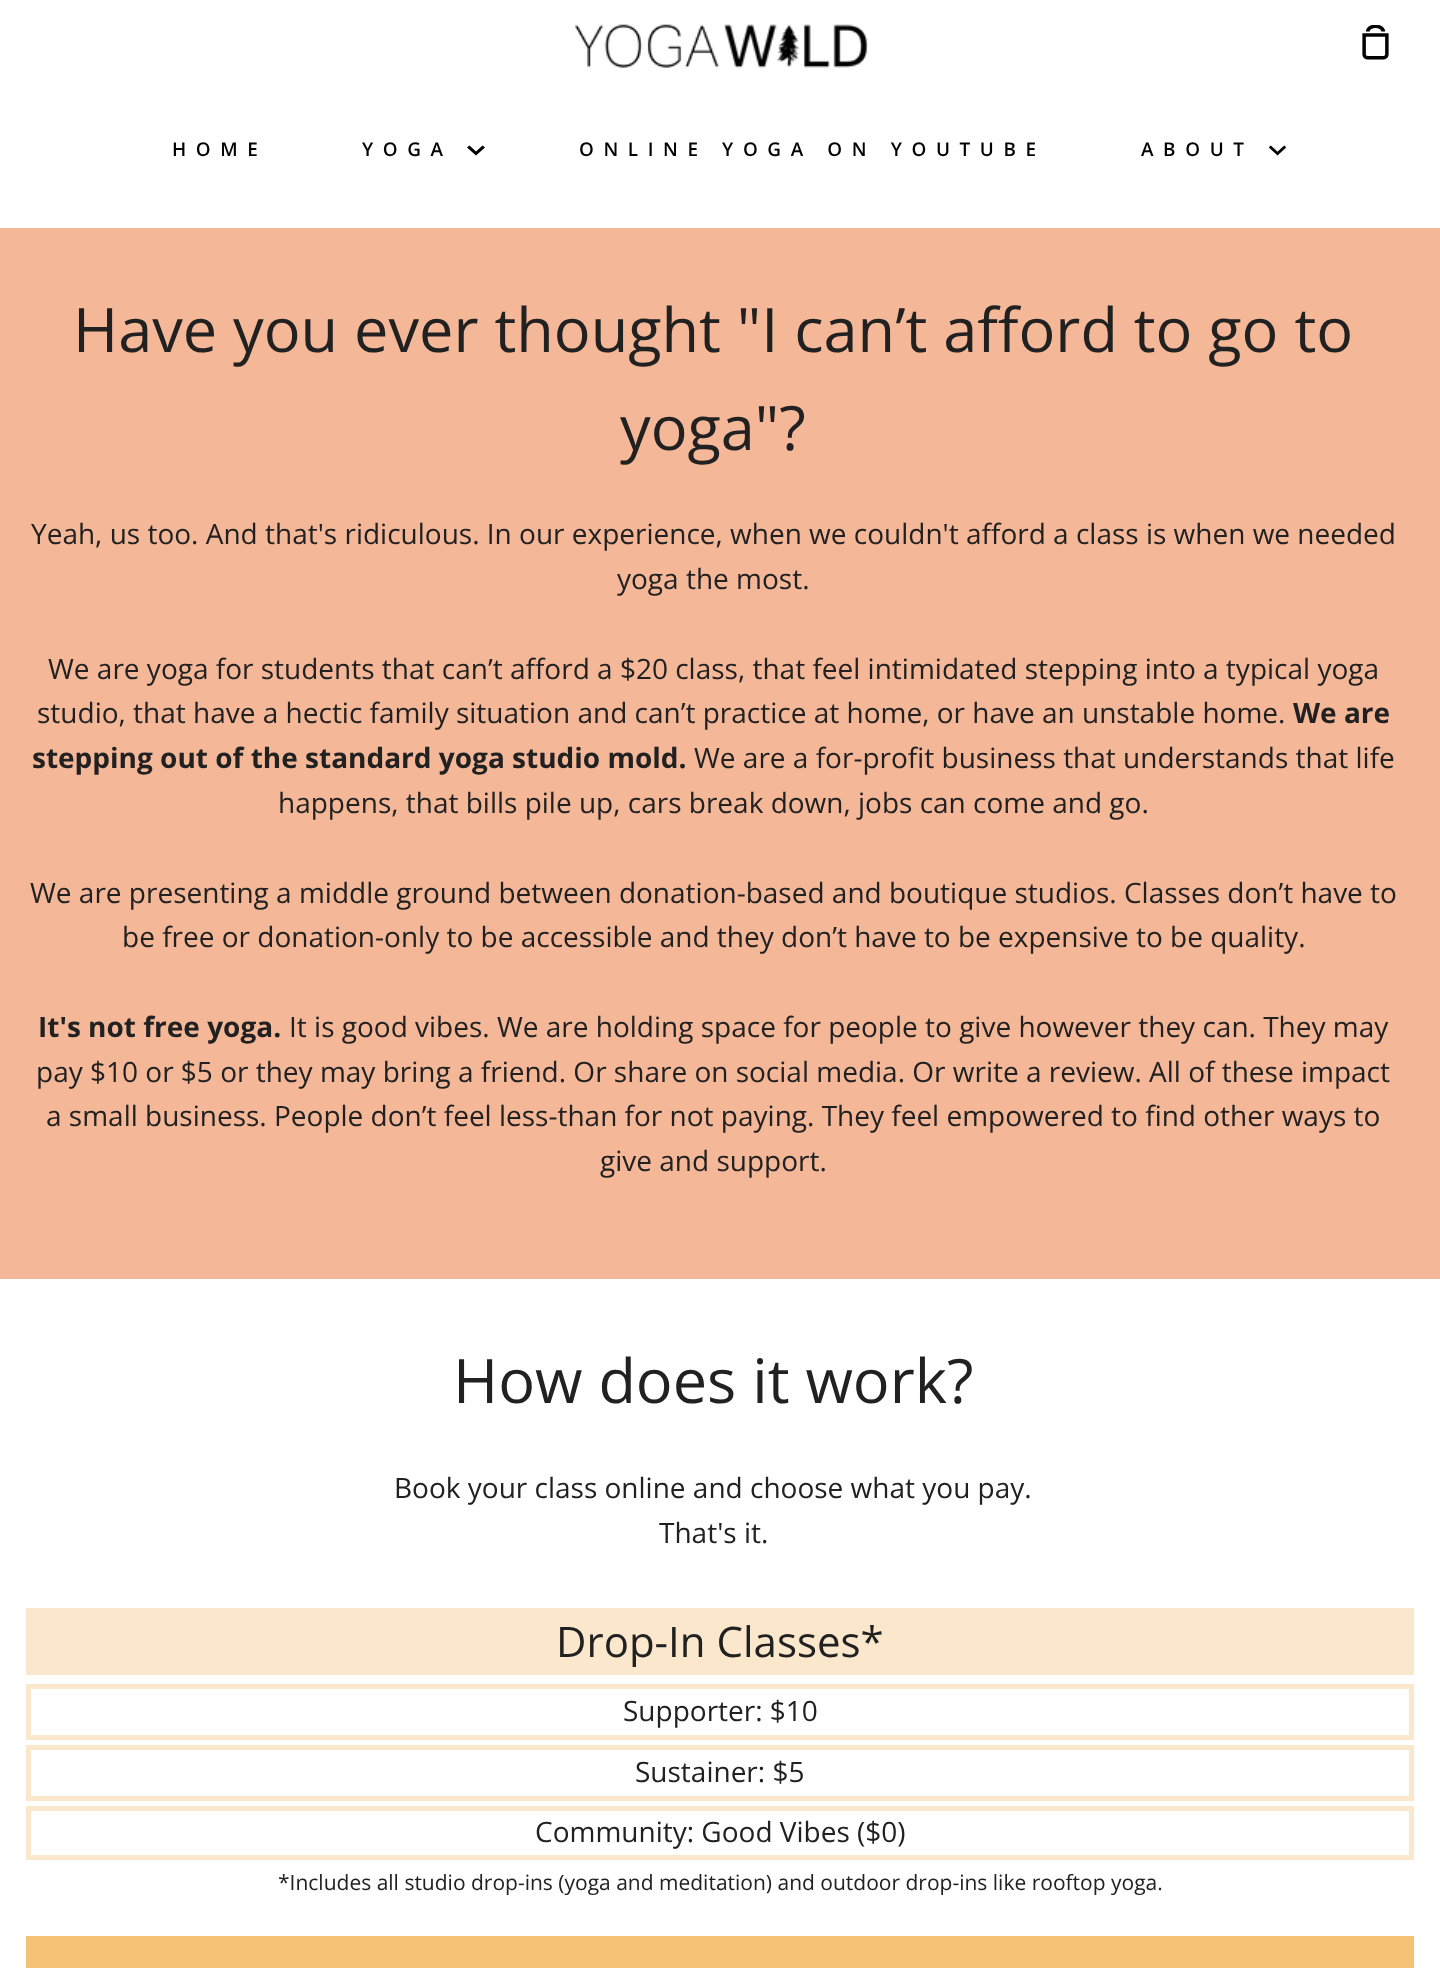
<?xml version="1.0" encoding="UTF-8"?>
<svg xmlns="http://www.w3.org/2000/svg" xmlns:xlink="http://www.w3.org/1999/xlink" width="1440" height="1968">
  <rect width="100%" height="100%" fill="#ffffff" />
  <image x="574" y="24" width="294" height="44" xlink:href="image1.png" />
  <image x="1362" y="25" width="27" height="35" xlink:href="image2.png" />
  <path d="M 469.5 145.5 l 6.5 6 l 6.5 -6 l 2.5 2 l -9 8 l -9 -8 z" fill="#020202" fill-rule="evenodd" />
  <image x="1269" y="145" width="17" height="11" xlink:href="image3.png" />
  <rect y="228" width="1440" height="1051" fill="#f4b798" />
  <rect x="26" y="1608" width="1388" height="67" fill="#fbe7cc" />
  <rect x="28.5" y="1686.5" width="1383" height="51" fill="none" stroke="#fbe7cc" stroke-width="5" />
  <rect x="28.5" y="1747.5" width="1383" height="51" fill="none" stroke="#fbe7cc" stroke-width="5" />
  <rect x="28.5" y="1808.5" width="1383" height="49" fill="none" stroke="#fbe7cc" stroke-width="5" />
  <rect x="26" y="1936" width="1388" height="32" fill="#f6c276" />
  <text x="172" y="156" style="font-family: Open Sans; font-size: 18.9px; font-weight: 600; letter-spacing: 9.6px; fill: #020202">HOME</text>
  <text x="362" y="156" style="font-family: Open Sans; font-size: 18.9px; font-weight: 600; letter-spacing: 9.6px; fill: #020202">YOGA</text>
  <text x="579" y="156" style="font-family: Open Sans; font-size: 18.9px; font-weight: 600; letter-spacing: 9.6px; fill: #020202">ONLINE YOGA ON YOUTUBE</text>
  <text x="1141" y="156" style="font-family: Open Sans; font-size: 18.9px; font-weight: 600; letter-spacing: 9.6px; fill: #020202">ABOUT</text>
  <text x="73" y="352" style="font-family: Open Sans; font-size: 61.25px; fill: #212121">Have you ever thought "I can’t afford to go to</text>
  <text x="620" y="450" style="font-family: Open Sans; font-size: 61.25px; fill: #212121">yoga"?</text>
  <text x="31" y="544" style="font-family: Open Sans; font-size: 28px; fill: #212121">Yeah, us too. And that's ridiculous. In our experience, when we couldn't afford a class is when we needed</text>
  <text x="617" y="589" style="font-family: Open Sans; font-size: 28px; fill: #212121">yoga the most.</text>
  <text x="48" y="679" style="font-family: Open Sans; font-size: 28px; fill: #212121">We are yoga for students that can’t afford a $20 class, that feel intimidated stepping into a typical yoga</text>
  <text x="37" y="723" style="font-family: Open Sans; font-size: 28px; fill: #212121">studio, that have a hectic family situation and can’t practice at home, or have an unstable home.</text>
  <text x="1293" y="723" style="font-family: Open Sans; font-size: 28px; font-weight: bold; fill: #212121">We are</text>
  <text x="32" y="768" style="font-family: Open Sans; font-size: 28px; font-weight: bold; fill: #212121">stepping out of the standard yoga studio mold.</text>
  <text x="694" y="768" style="font-family: Open Sans; font-size: 28px; fill: #212121">We are a for-profit business that understands that life</text>
  <text x="278" y="813" style="font-family: Open Sans; font-size: 28px; fill: #212121">happens, that bills pile up, cars break down, jobs can come and go.</text>
  <text x="30" y="903" style="font-family: Open Sans; font-size: 28px; fill: #212121">We are presenting a middle ground between donation-based and boutique studios. Classes don’t have to</text>
  <text x="122" y="947" style="font-family: Open Sans; font-size: 28px; fill: #212121">be free or donation-only to be accessible and they don’t have to be expensive to be quality.</text>
  <text x="38" y="1037" style="font-family: Open Sans; font-size: 28px; font-weight: bold; fill: #212121">It's not free yoga.</text>
  <text x="289" y="1037" style="font-family: Open Sans; font-size: 28px; fill: #212121">It is good vibes. We are holding space for people to give however they can. They may</text>
  <text x="36" y="1082" style="font-family: Open Sans; font-size: 28px; fill: #212121">pay $10 or $5 or they may bring a friend. Or share on social media. Or write a review. All of these impact</text>
  <text x="46" y="1126" style="font-family: Open Sans; font-size: 28px; fill: #212121">a small business. People don’t feel less-than for not paying. They feel empowered to find other ways to</text>
  <text x="600" y="1171" style="font-family: Open Sans; font-size: 28px; fill: #212121">give and support.</text>
  <text x="453" y="1403" style="font-family: Open Sans; font-size: 61.25px; fill: #212121">How does it work?</text>
  <text x="394" y="1498" style="font-family: Open Sans; font-size: 28px; fill: #212121">Book your class online and choose what you pay.</text>
  <text x="659" y="1543" style="font-family: Open Sans; font-size: 28px; fill: #212121">That's it.</text>
  <text x="556" y="1657" style="font-family: Open Sans; font-size: 42px; fill: #212121">Drop-In Classes*</text>
  <text x="623" y="1721" style="font-family: Open Sans; font-size: 28px; fill: #212121">Supporter: $10</text>
  <text x="635" y="1782" style="font-family: Open Sans; font-size: 28px; fill: #212121">Sustainer: $5</text>
  <text x="535" y="1842" style="font-family: Open Sans; font-size: 28px; fill: #212121">Community: Good Vibes ($0)</text>
  <text x="278" y="1890" style="font-family: Open Sans; font-size: 21px; fill: #212121">*Includes all studio drop-ins (yoga and meditation) and outdoor drop-ins like rooftop yoga.</text>
</svg>
